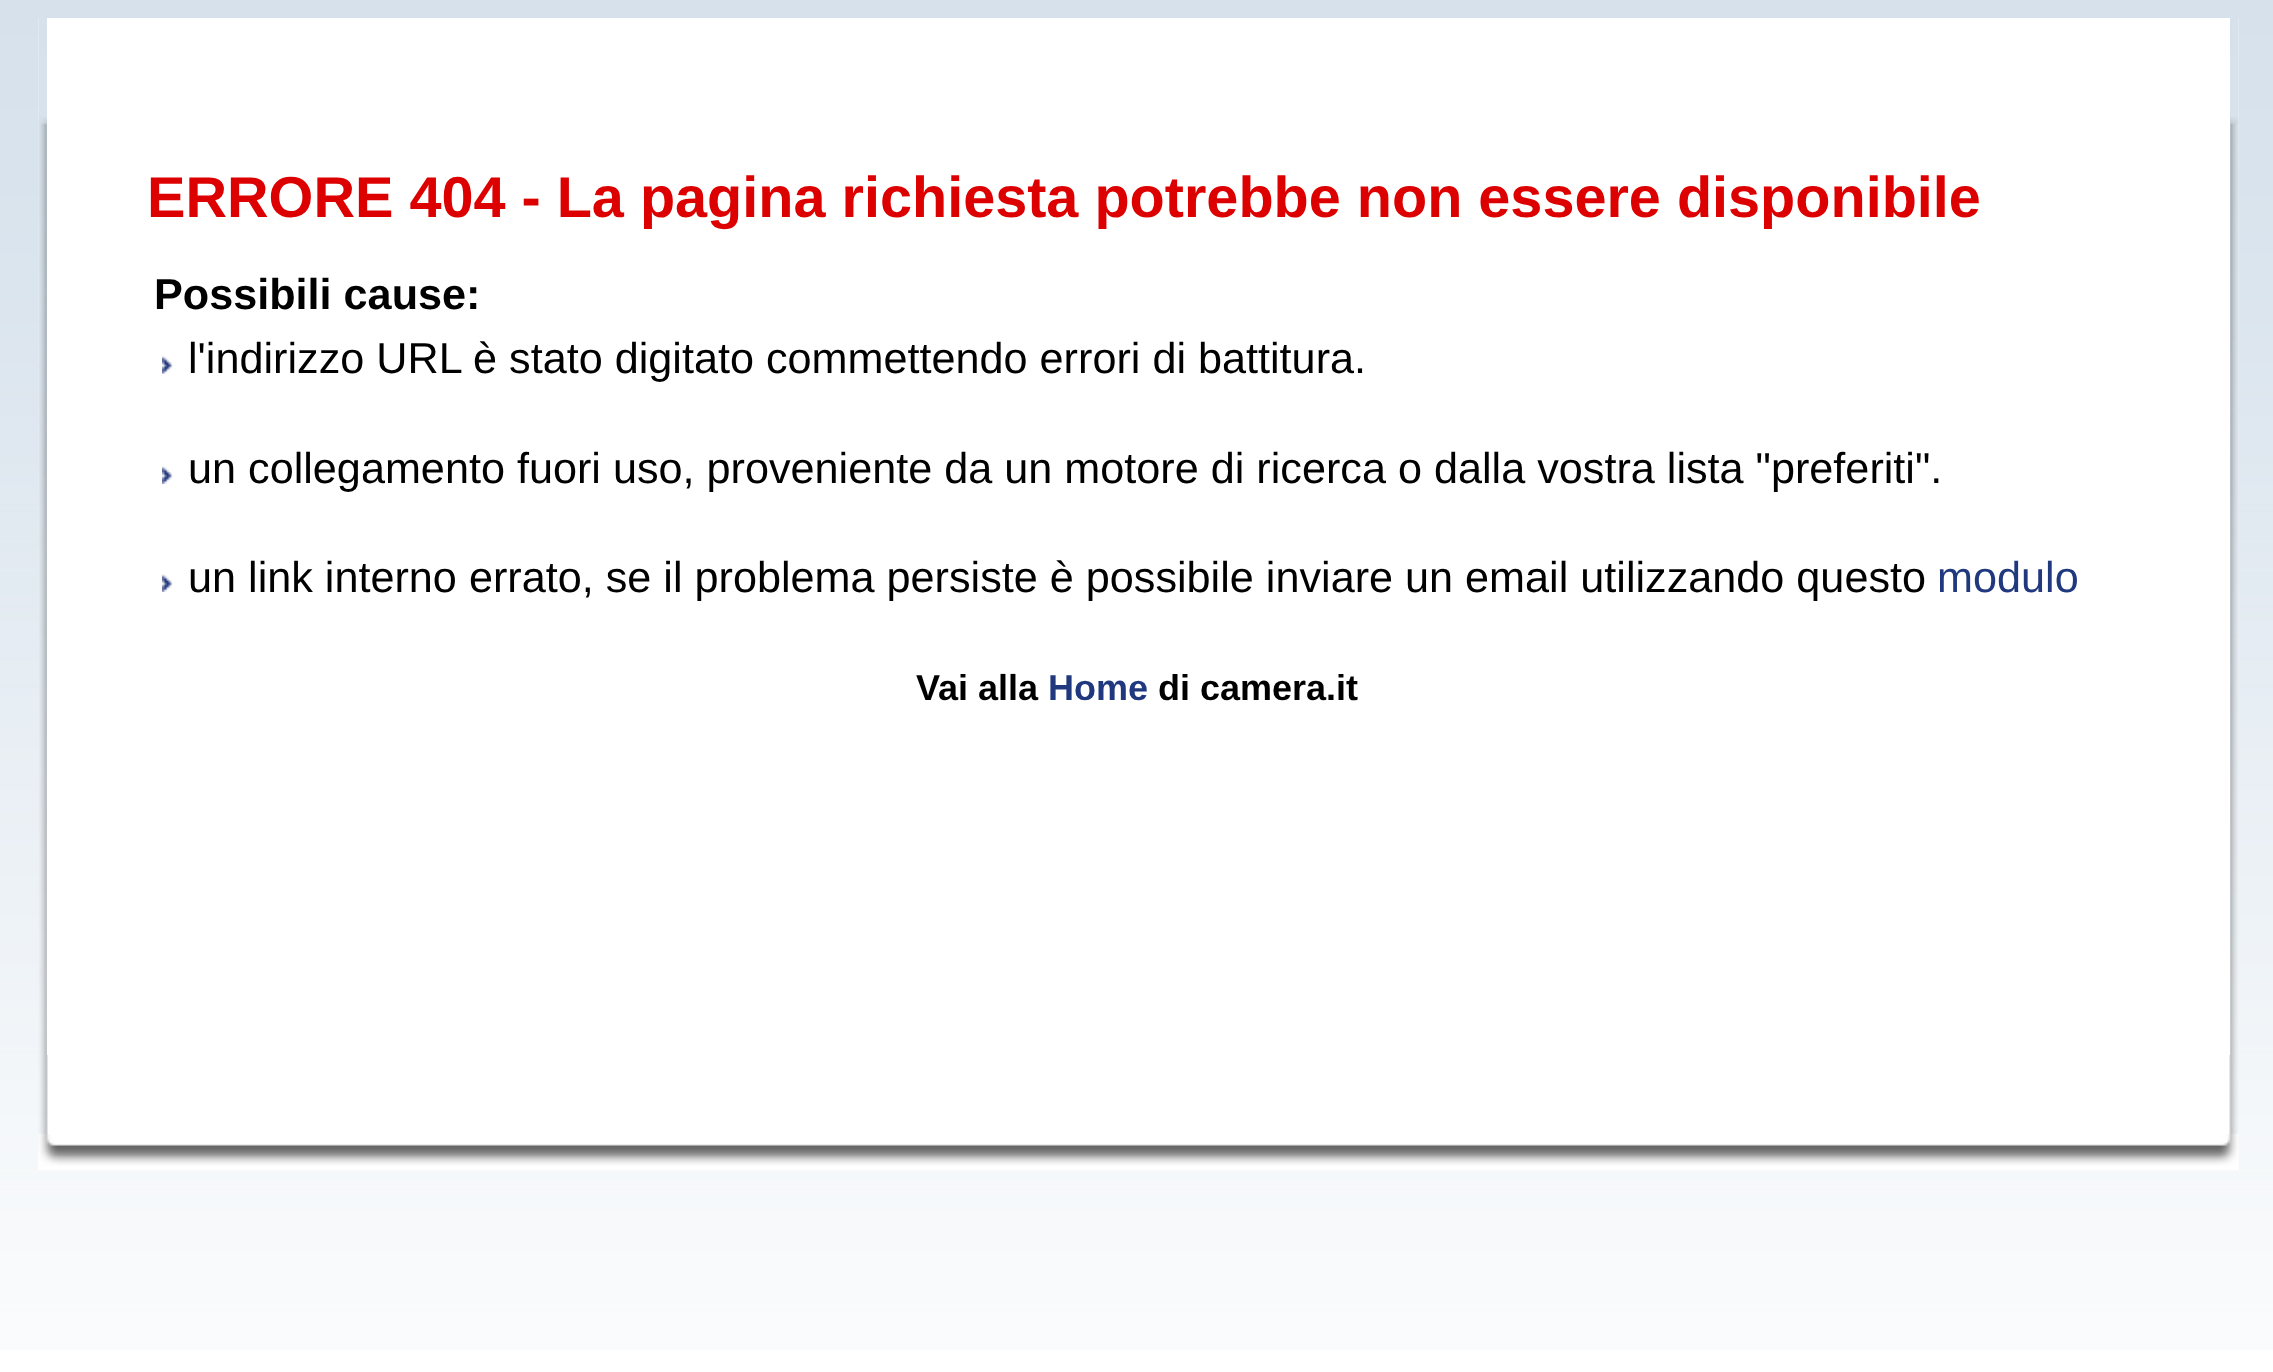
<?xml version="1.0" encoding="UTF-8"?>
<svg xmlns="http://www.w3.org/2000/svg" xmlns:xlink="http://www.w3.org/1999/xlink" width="2273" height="1372">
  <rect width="100%" height="100%" fill="#ffffff" />
  <image x="0" y="0" width="2273" height="1350" xlink:href="image1.png" />
  <rect x="38" y="18" width="2201" height="1116" fill="#ffffff" />
  <image x="38" y="18" width="2201" height="1116" xlink:href="image2.png" />
  <rect x="47" y="18" width="2183" height="1037" fill="#ffffff" />
  <image x="162" y="355" width="11" height="19" xlink:href="image3.png" />
  <image x="162" y="466" width="11" height="18" xlink:href="image4.png" />
  <image x="162" y="574" width="11" height="18" xlink:href="image5.png" />
  <image x="38" y="1134" width="2201" height="36" xlink:href="image6.png" />
  <text x="147" y="217" style="font-family: Liberation Sans; font-size: 57.6px; font-weight: bold; fill: #dd0000">ERRORE 404 - La pagina richiesta potrebbe non essere disponibile</text>
  <text x="154" y="309" style="font-family: Liberation Sans; font-size: 43.2px; font-weight: bold; fill: #000000">Possibili cause:</text>
  <text x="188" y="373" style="font-family: Liberation Sans; font-size: 43.2px; fill: #000000">l'indirizzo URL è stato digitato commettendo errori di battitura.</text>
  <text x="188" y="483" style="font-family: Liberation Sans; font-size: 43.2px; fill: #000000">un collegamento fuori uso, proveniente da un motore di ricerca o dalla vostra lista "preferiti".</text>
  <text x="188" y="592" style="font-family: Liberation Sans; font-size: 43.2px; fill: #000000">un link interno errato, se il problema persiste è possibile inviare un email utilizzando questo</text>
  <text x="1937" y="592" style="font-family: Liberation Sans; font-size: 43.2px; fill: #20387e">modulo</text>
  <text x="916" y="700" style="font-family: Liberation Sans; font-size: 36px; font-weight: bold; fill: #000000">Vai alla</text>
  <text x="1048" y="700" style="font-family: Liberation Sans; font-size: 36px; font-weight: bold; fill: #20387e">Home</text>
  <text x="1158" y="700" style="font-family: Liberation Sans; font-size: 36px; font-weight: bold; fill: #000000">di camera.it</text>
</svg>
